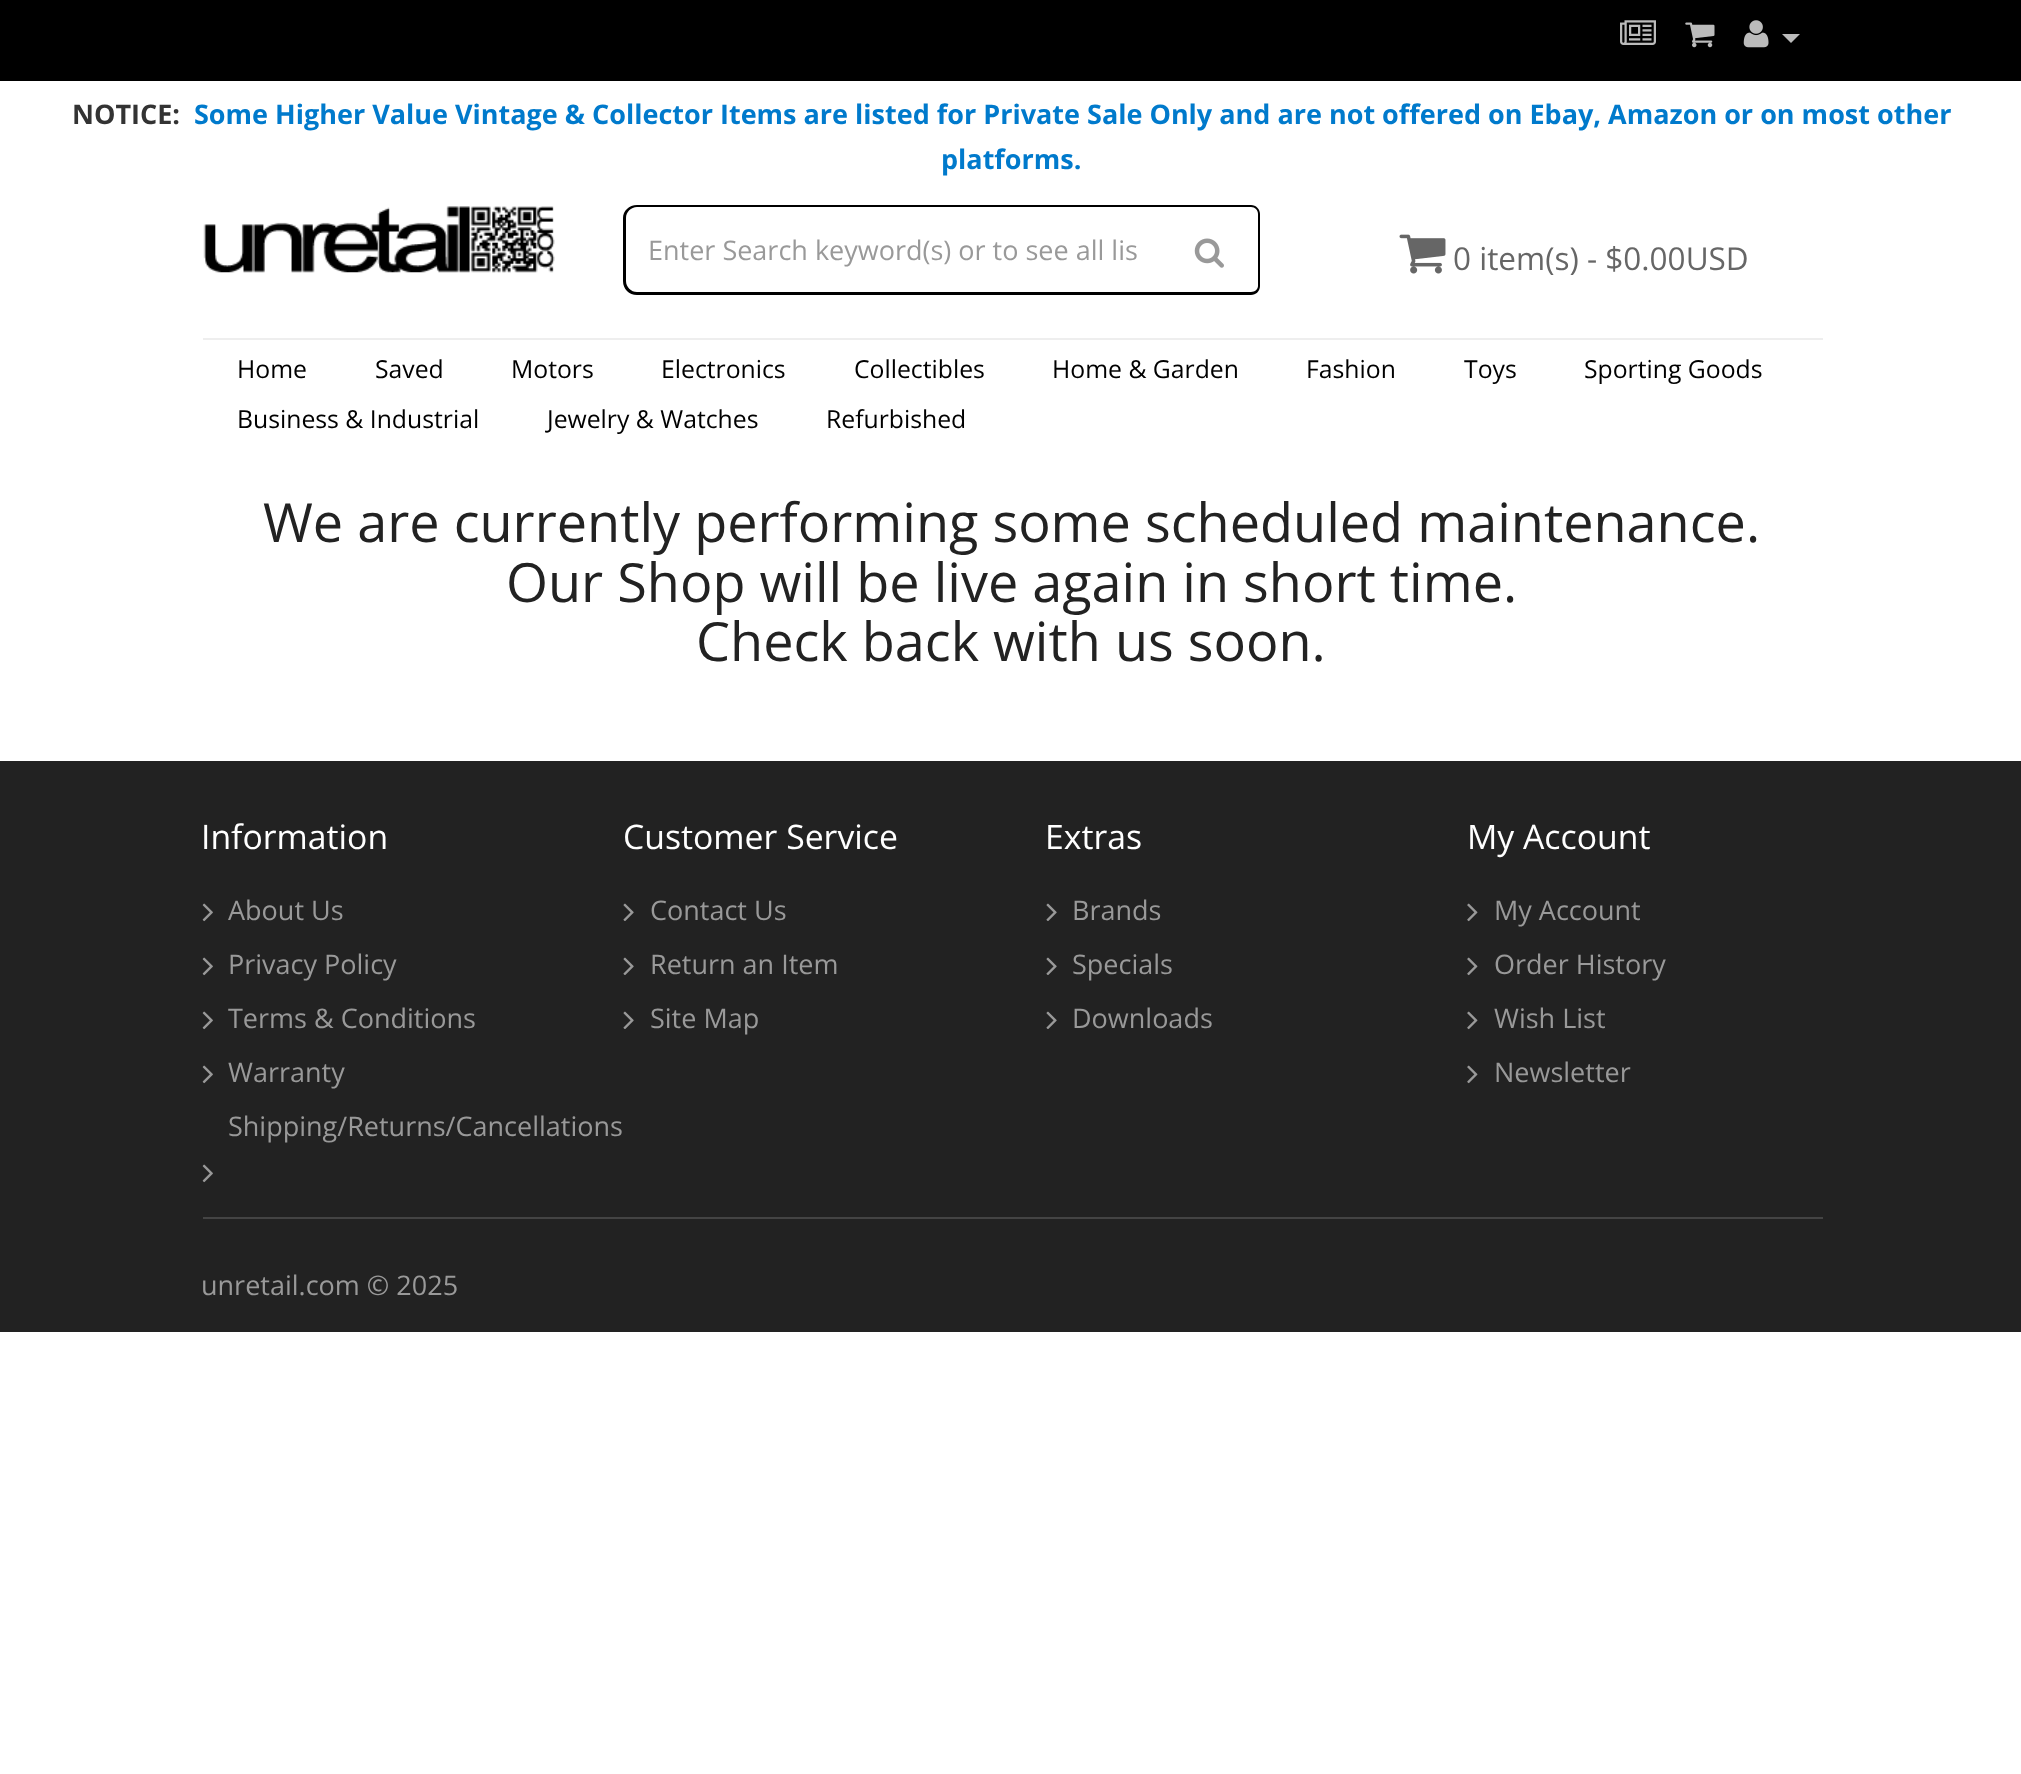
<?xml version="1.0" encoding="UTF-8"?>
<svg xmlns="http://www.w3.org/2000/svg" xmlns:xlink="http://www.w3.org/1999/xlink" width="2021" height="1774">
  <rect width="100%" height="100%" fill="#ffffff" />
  <rect width="2021" height="81" fill="#000000" />
  <image x="1620" y="20" width="36" height="25" xlink:href="image1.png" />
  <image x="1685" y="22" width="30" height="26" xlink:href="image2.png" />
  <image x="1743" y="20" width="26" height="28" xlink:href="image3.png" />
  <path d="M 1782 34 h 18 l -9 9 z" fill="#bbbbbb" />
  <image x="203" y="206" width="352" height="67" xlink:href="image4.png" />
  <path d="M 637 205 h 526 v 90 h -526 c -8 0 -14 -6 -14 -14 v -63 c 0 -7 6 -13 14 -13 z m 0 2 h 526 v 85 h -526 c -6 0 -11 -5 -11 -11 v -63 c 0 -6 5 -11 11 -11 z" fill="#000000" fill-rule="evenodd" />
  <path d="M 1161 205 h 90 c 5 0 9 4 9 9 v 72 c 0 5 -4 9 -9 9 h -90 z m 0 2 h 90 c 4 0 7 3 7 7 v 72 c 0 3 -3 6 -7 6 h -90 z" fill="#000000" fill-rule="evenodd" />
  <image x="1194" y="238" width="30" height="30" xlink:href="image5.png" />
  <image x="1399" y="234" width="47" height="40" xlink:href="image6.png" />
  <rect x="203" y="338" width="1620" height="2" fill="#eeeeee" />
  <rect y="761" width="2021" height="571" fill="#222222" />
  <image x="202" y="903" width="11" height="19" xlink:href="image7.png" />
  <image x="202" y="957" width="11" height="19" xlink:href="image7.png" />
  <image x="202" y="1011" width="11" height="19" xlink:href="image7.png" />
  <image x="202" y="1065" width="11" height="19" xlink:href="image7.png" />
  <image x="202" y="1164" width="11" height="19" xlink:href="image7.png" />
  <image x="623" y="903" width="11" height="18" xlink:href="image8.png" />
  <image x="623" y="957" width="11" height="18" xlink:href="image8.png" />
  <image x="623" y="1011" width="11" height="18" xlink:href="image8.png" />
  <image x="1046" y="903" width="11" height="18" xlink:href="image8.png" />
  <image x="1046" y="957" width="11" height="18" xlink:href="image8.png" />
  <image x="1046" y="1011" width="11" height="18" xlink:href="image8.png" />
  <image x="1467" y="903" width="11" height="19" xlink:href="image9.png" />
  <image x="1467" y="957" width="11" height="19" xlink:href="image9.png" />
  <image x="1467" y="1011" width="11" height="19" xlink:href="image9.png" />
  <image x="1467" y="1065" width="11" height="19" xlink:href="image9.png" />
  <rect x="203" y="1217" width="1620" height="2" fill="#444444" />
  <text x="72" y="124" style="font-family: Open Sans; font-size: 27px; font-weight: bold; fill: #333333">NOTICE:</text>
  <text x="194" y="124" style="font-family: Open Sans; font-size: 27px; font-weight: bold; fill: #007acc">Some Higher Value Vintage &amp; Collector Items are listed for Private Sale Only and are not offered on Ebay, Amazon or on most other</text>
  <text x="941" y="169" style="font-family: Open Sans; font-size: 27px; font-weight: bold; fill: #007acc">platforms.</text>
  <text x="648" y="260" style="font-family: Open Sans; font-size: 27px; fill: #999999">Enter Search keyword(s) or to see all lis</text>
  <text x="1453" y="270" style="font-family: Open Sans; font-size: 31.5px; fill: #666666">0 item(s) - $0.00USD</text>
  <text x="237" y="378" style="font-family: Open Sans; font-size: 24.75px; fill: #000000">Home</text>
  <text x="375" y="378" style="font-family: Open Sans; font-size: 24.75px; fill: #000000">Saved</text>
  <text x="511" y="378" style="font-family: Open Sans; font-size: 24.75px; fill: #000000">Motors</text>
  <text x="661" y="378" style="font-family: Open Sans; font-size: 24.75px; fill: #000000">Electronics</text>
  <text x="854" y="378" style="font-family: Open Sans; font-size: 24.75px; fill: #000000">Collectibles</text>
  <text x="1052" y="378" style="font-family: Open Sans; font-size: 24.75px; fill: #000000">Home &amp; Garden</text>
  <text x="1306" y="378" style="font-family: Open Sans; font-size: 24.75px; fill: #000000">Fashion</text>
  <text x="1464" y="378" style="font-family: Open Sans; font-size: 24.75px; fill: #000000">Toys</text>
  <text x="1584" y="378" style="font-family: Open Sans; font-size: 24.75px; fill: #000000">Sporting Goods</text>
  <text x="237" y="428" style="font-family: Open Sans; font-size: 24.75px; fill: #000000">Business &amp; Industrial</text>
  <text x="547" y="428" style="font-family: Open Sans; font-size: 24.75px; fill: #000000">Jewelry &amp; Watches</text>
  <text x="826" y="428" style="font-family: Open Sans; font-size: 24.75px; fill: #000000">Refurbished</text>
  <text x="263" y="542" style="font-family: Open Sans; font-size: 54px; fill: #222222">We are currently performing some scheduled maintenance.</text>
  <text x="506" y="602" style="font-family: Open Sans; font-size: 54px; fill: #222222">Our Shop will be live again in short time.</text>
  <text x="696" y="661" style="font-family: Open Sans; font-size: 54px; fill: #222222">Check back with us soon.</text>
  <text x="201" y="849" style="font-family: Open Sans; font-size: 33.75px; fill: #ffffff">Information</text>
  <text x="228" y="920" style="font-family: Open Sans; font-size: 27px; fill: #999999">About Us</text>
  <text x="228" y="974" style="font-family: Open Sans; font-size: 27px; fill: #999999">Privacy Policy</text>
  <text x="228" y="1028" style="font-family: Open Sans; font-size: 27px; fill: #999999">Terms &amp; Conditions</text>
  <text x="228" y="1082" style="font-family: Open Sans; font-size: 27px; fill: #999999">Warranty</text>
  <text x="228" y="1136" style="font-family: Open Sans; font-size: 27px; fill: #999999">Shipping/Returns/Cancellations</text>
  <text x="623" y="849" style="font-family: Open Sans; font-size: 33.75px; fill: #ffffff">Customer Service</text>
  <text x="650" y="920" style="font-family: Open Sans; font-size: 27px; fill: #999999">Contact Us</text>
  <text x="650" y="974" style="font-family: Open Sans; font-size: 27px; fill: #999999">Return an Item</text>
  <text x="650" y="1028" style="font-family: Open Sans; font-size: 27px; fill: #999999">Site Map</text>
  <text x="1045" y="849" style="font-family: Open Sans; font-size: 33.75px; fill: #ffffff">Extras</text>
  <text x="1072" y="920" style="font-family: Open Sans; font-size: 27px; fill: #999999">Brands</text>
  <text x="1072" y="974" style="font-family: Open Sans; font-size: 27px; fill: #999999">Specials</text>
  <text x="1072" y="1028" style="font-family: Open Sans; font-size: 27px; fill: #999999">Downloads</text>
  <text x="1467" y="849" style="font-family: Open Sans; font-size: 33.75px; fill: #ffffff">My Account</text>
  <text x="1494" y="920" style="font-family: Open Sans; font-size: 27px; fill: #999999">My Account</text>
  <text x="1494" y="974" style="font-family: Open Sans; font-size: 27px; fill: #999999">Order History</text>
  <text x="1494" y="1028" style="font-family: Open Sans; font-size: 27px; fill: #999999">Wish List</text>
  <text x="1494" y="1082" style="font-family: Open Sans; font-size: 27px; fill: #999999">Newsletter</text>
  <text x="201" y="1295" style="font-family: Open Sans; font-size: 27px; fill: #999999">unretail.com © 2025</text>
</svg>
